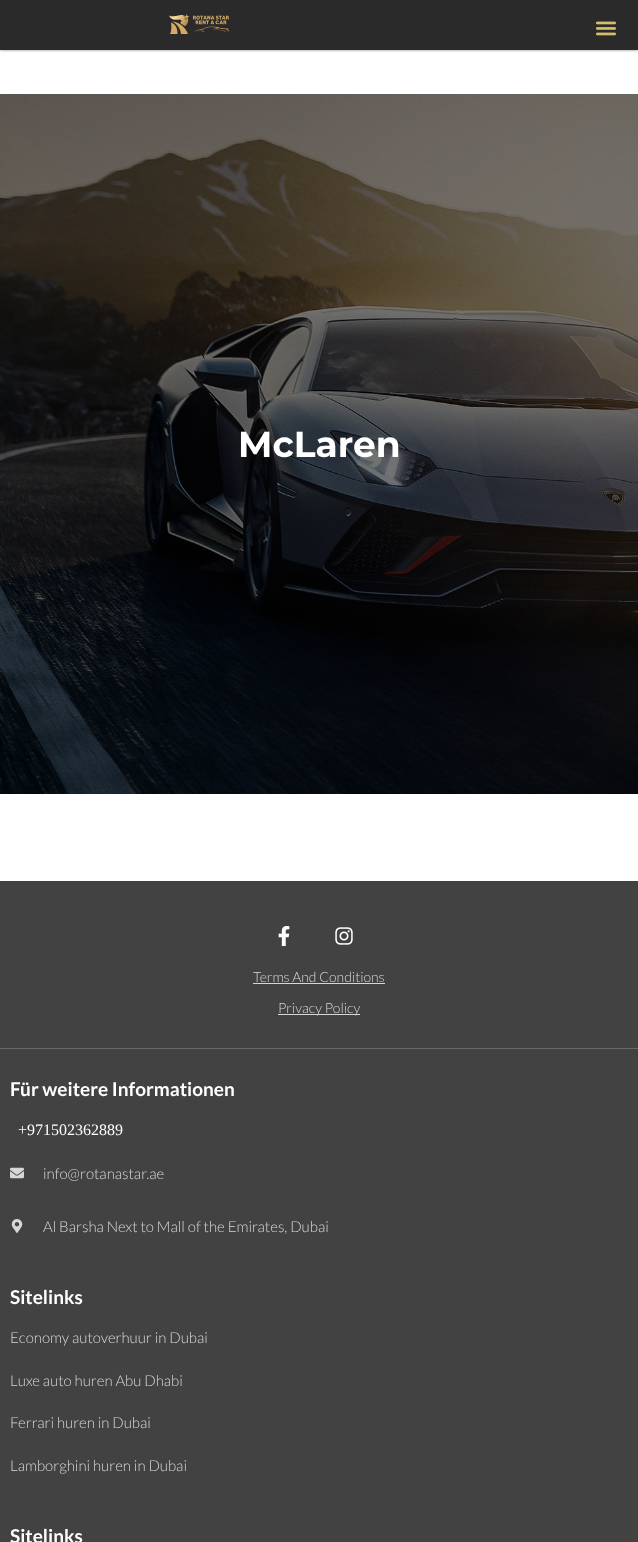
<?xml version="1.0" encoding="UTF-8"?>
<svg xmlns="http://www.w3.org/2000/svg" xmlns:xlink="http://www.w3.org/1999/xlink" width="638" height="1542">
  <rect width="100%" height="100%" fill="#ffffff" />
  <rect width="638" height="50" fill="#000000" fill-opacity="0.5" filter="blur(1.5px)" />
  <rect width="638" height="50" fill="#2a2a2a" />
  <image x="169" y="14" width="60" height="20" xlink:href="image1.png" />
  <image x="595" y="21" width="21" height="15" xlink:href="image2.png" />
  <image x="0" y="94" width="638" height="700" xlink:href="image3.png" />
  <rect y="881" width="638" height="661" fill="#424242" />
  <rect y="1048" width="638" height="1" fill="#686868" />
  <image x="278" y="926" width="12" height="20" xlink:href="image4.png" />
  <image x="335" y="927" width="18" height="18" xlink:href="image5.png" />
  <rect x="253" y="983" width="132" height="1" fill="#d7d7d9" />
  <rect x="278" y="1014" width="82" height="1" fill="#d7d7d9" />
  <image x="10" y="1167" width="14" height="12" xlink:href="image6.png" />
  <image x="11" y="1219" width="12" height="14" xlink:href="image7.png" />
  <text x="238" y="457" style="font-family: Montserrat; font-size: 36px; font-weight: bold; fill: #ffffff">McLaren</text>
  <text x="253" y="982" style="font-family: Lato; font-size: 14px; font-weight: 300; fill: #d7d7d9">Terms And Conditions</text>
  <text x="278" y="1013" style="font-family: Lato; font-size: 14px; font-weight: 300; fill: #d7d7d9">Privacy Policy</text>
  <text x="10" y="1096" style="font-family: Lato; font-size: 19px; font-weight: bold; fill: #ffffff">Für weitere Informationen</text>
  <text x="18" y="1135" style="font-family: Liberation Serif; font-size: 16px; fill: #ffffff">+971502362889</text>
  <text x="43" y="1179" style="font-family: Lato; font-size: 15px; font-weight: 300; fill: #d7d7d9">info@rotanastar.ae</text>
  <text x="43" y="1232" style="font-family: Lato; font-size: 15px; font-weight: 300; fill: #d7d7d9">Al Barsha Next to Mall of the Emirates, Dubai</text>
  <text x="10" y="1304" style="font-family: Lato; font-size: 19px; font-weight: bold; fill: #ffffff">Sitelinks</text>
  <text x="10" y="1343" style="font-family: Lato; font-size: 15px; font-weight: 300; fill: #d7d7d9">Economy autoverhuur in Dubai</text>
  <text x="10" y="1386" style="font-family: Lato; font-size: 15px; font-weight: 300; fill: #d7d7d9">Luxe auto huren Abu Dhabi</text>
  <text x="10" y="1428" style="font-family: Lato; font-size: 15px; font-weight: 300; fill: #d7d7d9">Ferrari huren in Dubai</text>
  <text x="10" y="1471" style="font-family: Lato; font-size: 15px; font-weight: 300; fill: #d7d7d9">Lamborghini huren in Dubai</text>
  <text x="10" y="1543" style="font-family: Lato; font-size: 19px; font-weight: bold; fill: #ffffff">Sitelinks</text>
</svg>
